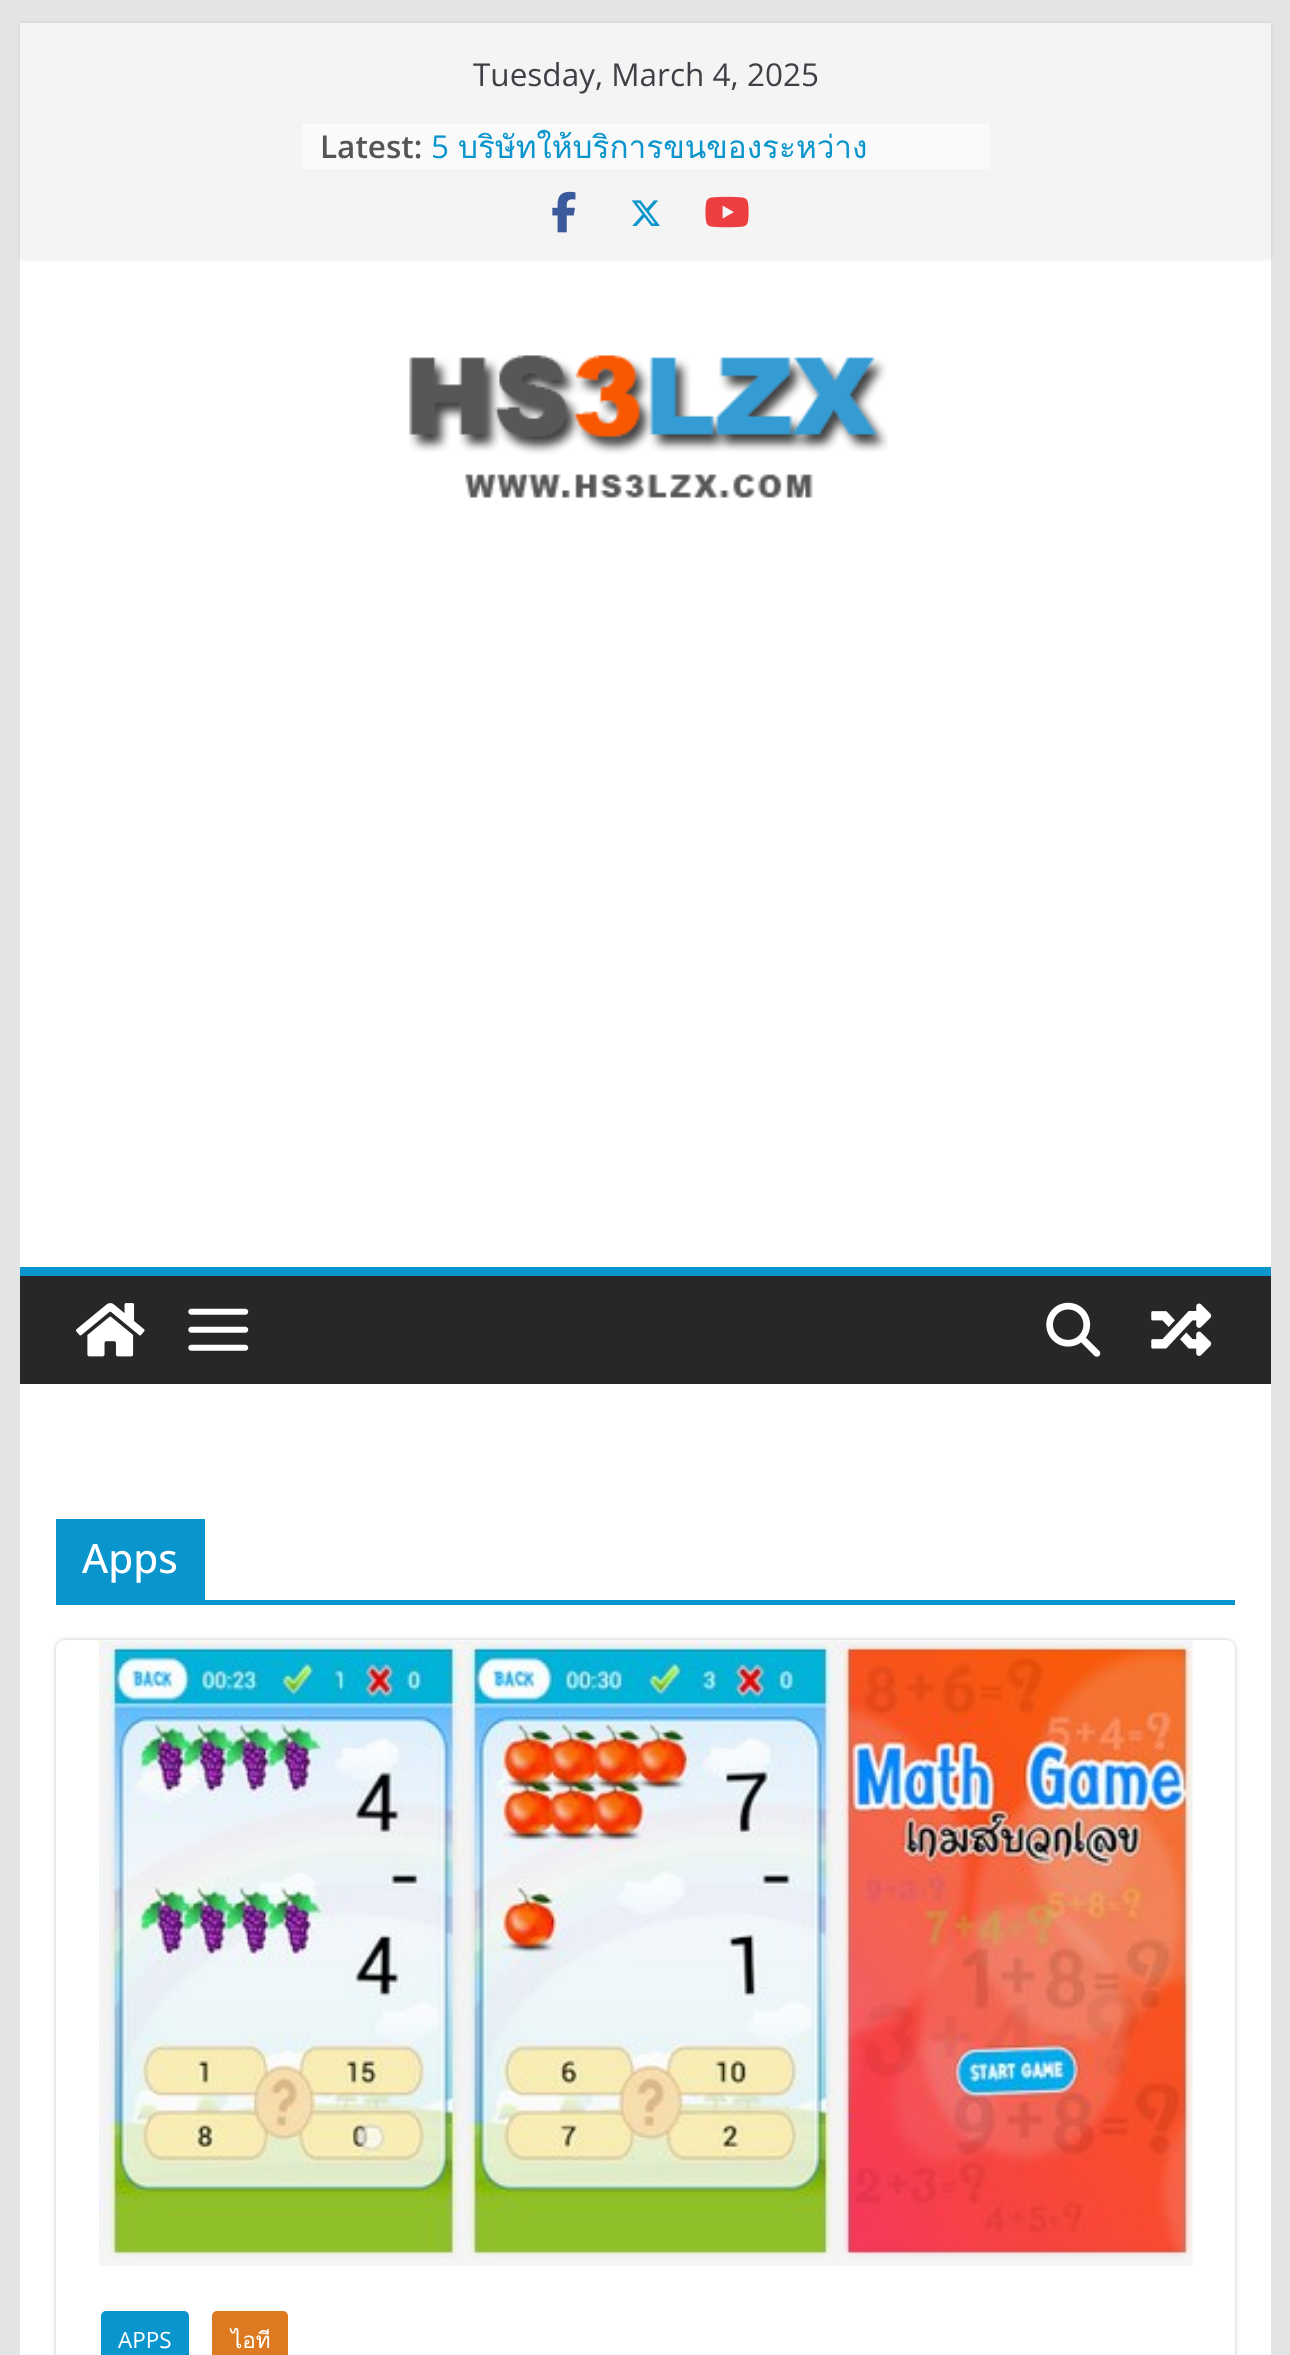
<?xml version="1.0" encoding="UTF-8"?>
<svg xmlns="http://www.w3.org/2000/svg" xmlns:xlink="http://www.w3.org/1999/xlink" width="1290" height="2355">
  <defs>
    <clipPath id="clip1"><path d="M 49 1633 h 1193 v 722 h -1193 z m 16 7 h 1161 c 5 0 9 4 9 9 v 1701 c 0 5 -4 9 -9 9 h -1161 c -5 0 -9 -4 -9 -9 v -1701 c 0 -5 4 -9 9 -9 z" clip-rule="evenodd" /></clipPath>
  </defs>
  <rect width="100%" height="100%" fill="#e4e4e7" />
  <rect x="20" y="259" width="1251" height="1008" fill="#ffffff" />
  <rect x="20" y="23" width="1251" height="236" fill="#000000" fill-opacity="0.1" filter="blur(2px)" />
  <rect x="20" y="23" width="1251" height="236" fill="#f4f4f5" />
  <rect x="302" y="124" width="688" height="45" fill="#fafafa" />
  <image x="552" y="191" width="24" height="42" xlink:href="image1.png" />
  <image x="631" y="200" width="29" height="26" xlink:href="image2.png" />
  <image x="705" y="196" width="44" height="32" xlink:href="image3.png" />
  <image x="409" y="355" width="479" height="143" xlink:href="image4.png" />
  <rect x="20" y="1276" width="1251" height="108" fill="#27272a" />
  <rect x="20" y="1267" width="1251" height="9" fill="#0a95cc" />
  <image x="76" y="1303" width="69" height="54" xlink:href="image5.png" />
  <image x="188" y="1308" width="61" height="43" xlink:href="image6.png" />
  <image x="1046" y="1302" width="55" height="55" xlink:href="image7.png" />
  <image x="1151" y="1303" width="61" height="53" xlink:href="image8.png" />
  <rect x="20" y="1384" width="1251" height="971" fill="#ffffff" />
  <rect x="56" y="1600" width="1179" height="5" fill="#0a95cc" />
  <rect x="56" y="1519" width="149" height="81" fill="#0a95cc" />
  <g clip-path="url(#clip1)">
    <rect x="56" y="1640" width="1179" height="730" rx="9" fill="#000000" fill-opacity="0.24" filter="blur(2px)" />
  </g>
  <image x="99" y="1640" width="1094" height="626" xlink:href="image9.png" />
  <rect x="101" y="2311" width="88" height="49" rx="5" fill="#0a95cc" />
  <rect x="212" y="2311" width="76" height="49" rx="5" fill="#dd7921" />
  <text x="473" y="86" style="font-family: Open Sans; font-size: 31.5px; fill: #3f3f46">Tuesday, March 4, 2025</text>
  <text x="320" y="158" style="font-family: Open Sans; font-size: 31.5px; font-weight: 600; fill: #555555">Latest:</text>
  <text x="431" y="158" style="font-family: Open Sans; font-size: 31.5px; fill: #0a95cc">5</text>
  <text x="458" y="158" style="font-family: Loma; font-size: 31.5px; fill: #0a95cc">บริษัทให้บริการขนของระหว่าง</text>
  <text x="82" y="1573" style="font-family: Open Sans; font-size: 40.5px; font-weight: 500; fill: #ffffff">Apps</text>
  <text x="118" y="2348" style="font-family: Open Sans; font-size: 22.5px; fill: #ffffff">APPS</text>
  <text x="231" y="2348" style="font-family: Loma; font-size: 22.5px; fill: #ffffff">ไอที</text>
</svg>
